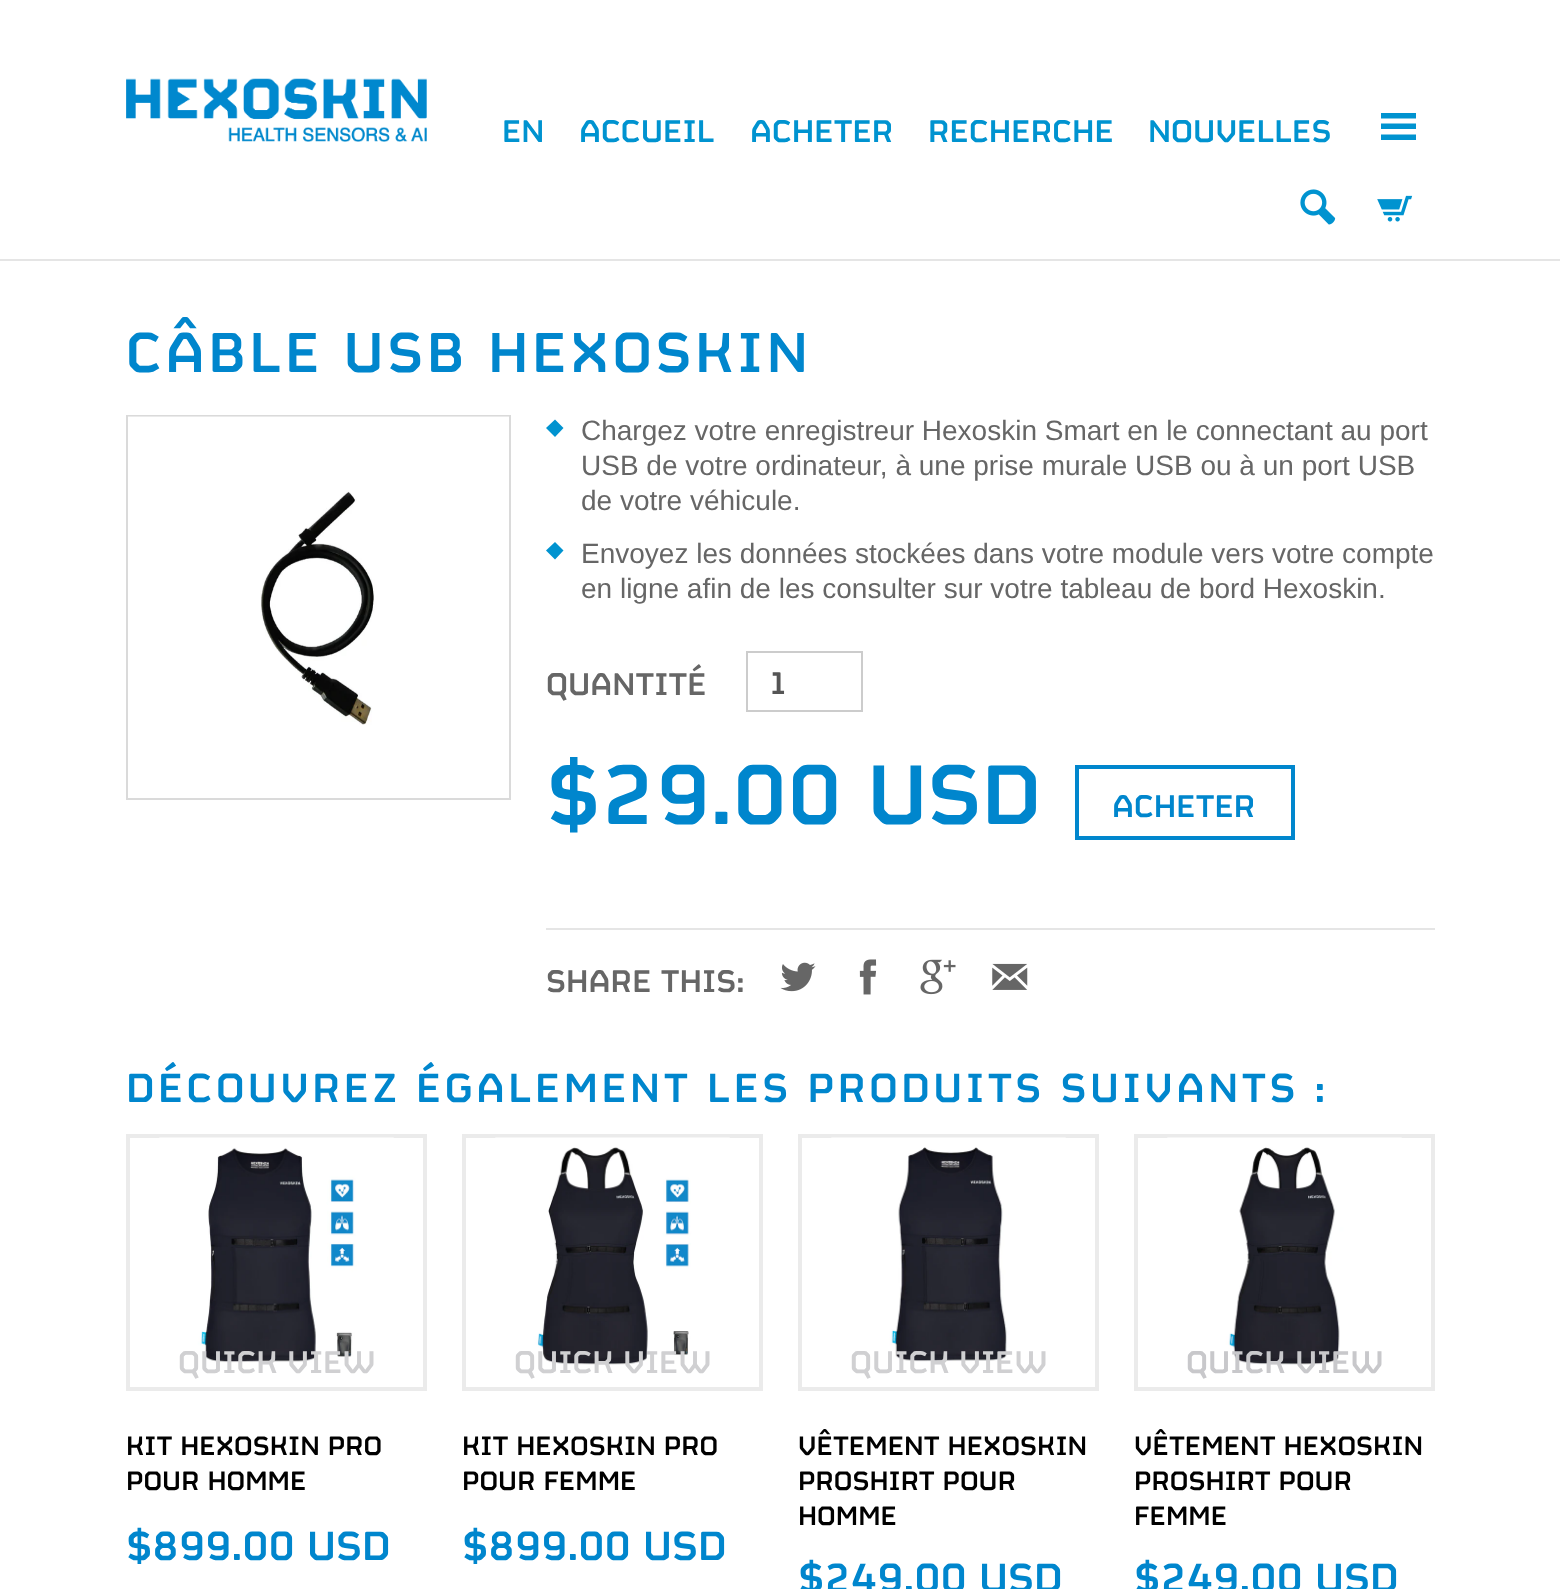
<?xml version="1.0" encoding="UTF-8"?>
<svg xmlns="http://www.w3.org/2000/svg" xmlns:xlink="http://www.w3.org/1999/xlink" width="1560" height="1589">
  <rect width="100%" height="100%" fill="#ffffff" />
  <rect y="259" width="1560" height="2" fill="#e5e5e5" />
  <image x="126" y="78" width="301" height="64" xlink:href="image1.png" />
  <path d="M 1416 118.5 h -35 v -5.5 h 35 z m 0 5 h -35 v 5.5 h 35 z m 0 11 h -35 v 5.5 h 35 z" fill="#0093d0" />
  <image x="1300" y="189" width="36" height="36" xlink:href="image2.png" />
  <image x="1377" y="195" width="36" height="27" xlink:href="image3.png" />
  <rect x="127" y="416" width="383" height="383" fill="none" stroke="#dadada" stroke-width="2" />
  <image x="128" y="416" width="381" height="309" xlink:href="image4.png" />
  <path d="M 555 419.5 l 8.5 8.5 l -8.5 9 l -9 -9 z" fill="#0093d0" />
  <path d="M 555 542 l 8.5 8.5 l -8.5 9 l -9 -9 z" fill="#0093d0" />
  <rect x="747" y="652" width="115" height="59" fill="none" stroke="#cccccc" stroke-width="2" />
  <rect x="1077" y="767" width="216" height="71" fill="none" stroke="#0086cd" stroke-width="4" />
  <rect x="546" y="928" width="889" height="2" fill="#e5e5e5" />
  <image x="780" y="962" width="36" height="30" xlink:href="image5.png" />
  <image x="859" y="959" width="18" height="36" xlink:href="image6.png" />
  <image x="920" y="959" width="36" height="36" xlink:href="image7.png" />
  <image x="992" y="963" width="36" height="27" xlink:href="image8.png" />
  <rect x="128" y="1136" width="297" height="253" fill="none" stroke="#ebebeb" stroke-width="4" />
  <image x="159" y="1137" width="235" height="226" xlink:href="image9.png" />
  <rect x="464" y="1136" width="297" height="253" fill="none" stroke="#ebebeb" stroke-width="4" />
  <image x="495" y="1137" width="235" height="228" xlink:href="image10.png" />
  <rect x="800" y="1136" width="297" height="253" fill="none" stroke="#ebebeb" stroke-width="4" />
  <image x="831" y="1137" width="235" height="225" xlink:href="image11.png" />
  <rect x="1136" y="1136" width="297" height="253" fill="none" stroke="#ebebeb" stroke-width="4" />
  <image x="1167" y="1137" width="235" height="228" xlink:href="image12.png" />
  <text x="502" y="142" style="font-family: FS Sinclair; font-size: 35px; font-weight: 500; fill: #0093d0">EN</text>
  <text x="579" y="142" style="font-family: FS Sinclair; font-size: 35px; font-weight: 500; fill: #0093d0">ACCUEIL</text>
  <text x="750" y="142" style="font-family: FS Sinclair; font-size: 35px; font-weight: 500; fill: #0093d0">ACHETER</text>
  <text x="928" y="142" style="font-family: FS Sinclair; font-size: 35px; font-weight: 500; fill: #0093d0">RECHERCHE</text>
  <text x="1148" y="142" style="font-family: FS Sinclair; font-size: 35px; font-weight: 500; fill: #0093d0">NOUVELLES</text>
  <text x="126" y="372" style="font-family: FS Sinclair; font-size: 63px; font-weight: 500; letter-spacing: 3.5px; fill: #0086cd">CÂBLE USB HEXOSKIN</text>
  <text x="581" y="440" style="font-family: Liberation Sans; font-size: 28px; fill: #666666">Chargez votre enregistreur Hexoskin Smart en le connectant au port</text>
  <text x="581" y="475" style="font-family: Liberation Sans; font-size: 28px; fill: #666666">USB de votre ordinateur, à une prise murale USB ou à un port USB</text>
  <text x="581" y="510" style="font-family: Liberation Sans; font-size: 28px; fill: #666666">de votre véhicule.</text>
  <text x="581" y="563" style="font-family: Liberation Sans; font-size: 28px; fill: #666666">Envoyez les données stockées dans votre module vers votre compte</text>
  <text x="581" y="598" style="font-family: Liberation Sans; font-size: 28px; fill: #666666">en ligne afin de les consulter sur votre tableau de bord Hexoskin.</text>
  <text x="546" y="695" style="font-family: FS Sinclair; font-size: 35px; font-weight: 500; fill: #666666">QUANTITÉ</text>
  <text x="768" y="694" style="font-family: FS Sinclair; font-size: 35px; font-weight: 500; fill: #555555">1</text>
  <text x="546" y="824" style="font-family: FS Sinclair; font-size: 94.5px; font-weight: 500; fill: #0086cd">$29.00 USD</text>
  <text x="1112" y="817" style="font-family: FS Sinclair; font-size: 35px; font-weight: 500; fill: #0086cd">ACHETER</text>
  <text x="546" y="992" style="font-family: FS Sinclair; font-size: 35px; font-weight: 500; fill: #666666">SHARE THIS:</text>
  <text x="126" y="1102" style="font-family: FS Sinclair; font-size: 45.5px; font-weight: 500; letter-spacing: 3.5px; fill: #0086cd">DÉCOUVREZ ÉGALEMENT LES PRODUITS SUIVANTS :</text>
  <text x="178" y="1373" style="font-family: FS Sinclair; font-size: 35px; font-weight: 500; fill: #d0d0d2">QUICK VIEW</text>
  <text x="126" y="1455" style="font-family: FS Sinclair; font-size: 29.75px; font-weight: 500; fill: #000000">KIT HEXOSKIN PRO</text>
  <text x="126" y="1490" style="font-family: FS Sinclair; font-size: 29.75px; font-weight: 500; fill: #000000">POUR HOMME</text>
  <text x="126" y="1560" style="font-family: FS Sinclair; font-size: 45.5px; font-weight: 500; fill: #0086cd">$899.00 USD</text>
  <text x="514" y="1373" style="font-family: FS Sinclair; font-size: 35px; font-weight: 500; fill: #d0d0d2">QUICK VIEW</text>
  <text x="462" y="1455" style="font-family: FS Sinclair; font-size: 29.75px; font-weight: 500; fill: #000000">KIT HEXOSKIN PRO</text>
  <text x="462" y="1490" style="font-family: FS Sinclair; font-size: 29.75px; font-weight: 500; fill: #000000">POUR FEMME</text>
  <text x="462" y="1560" style="font-family: FS Sinclair; font-size: 45.5px; font-weight: 500; fill: #0086cd">$899.00 USD</text>
  <text x="850" y="1373" style="font-family: FS Sinclair; font-size: 35px; font-weight: 500; fill: #d0d0d2">QUICK VIEW</text>
  <text x="798" y="1455" style="font-family: FS Sinclair; font-size: 29.75px; font-weight: 500; fill: #000000">VÊTEMENT HEXOSKIN</text>
  <text x="798" y="1490" style="font-family: FS Sinclair; font-size: 29.75px; font-weight: 500; fill: #000000">PROSHIRT POUR</text>
  <text x="798" y="1525" style="font-family: FS Sinclair; font-size: 29.75px; font-weight: 500; fill: #000000">HOMME</text>
  <text x="798" y="1592" style="font-family: FS Sinclair; font-size: 45.5px; font-weight: 500; fill: #0086cd">$249.00 USD</text>
  <text x="1186" y="1373" style="font-family: FS Sinclair; font-size: 35px; font-weight: 500; fill: #c8c8cb">QUICK VIEW</text>
  <text x="1134" y="1455" style="font-family: FS Sinclair; font-size: 29.75px; font-weight: 500; fill: #000000">VÊTEMENT HEXOSKIN</text>
  <text x="1134" y="1490" style="font-family: FS Sinclair; font-size: 29.75px; font-weight: 500; fill: #000000">PROSHIRT POUR</text>
  <text x="1134" y="1525" style="font-family: FS Sinclair; font-size: 29.75px; font-weight: 500; fill: #000000">FEMME</text>
  <text x="1134" y="1592" style="font-family: FS Sinclair; font-size: 45.5px; font-weight: 500; fill: #0086cd">$249.00 USD</text>
</svg>
